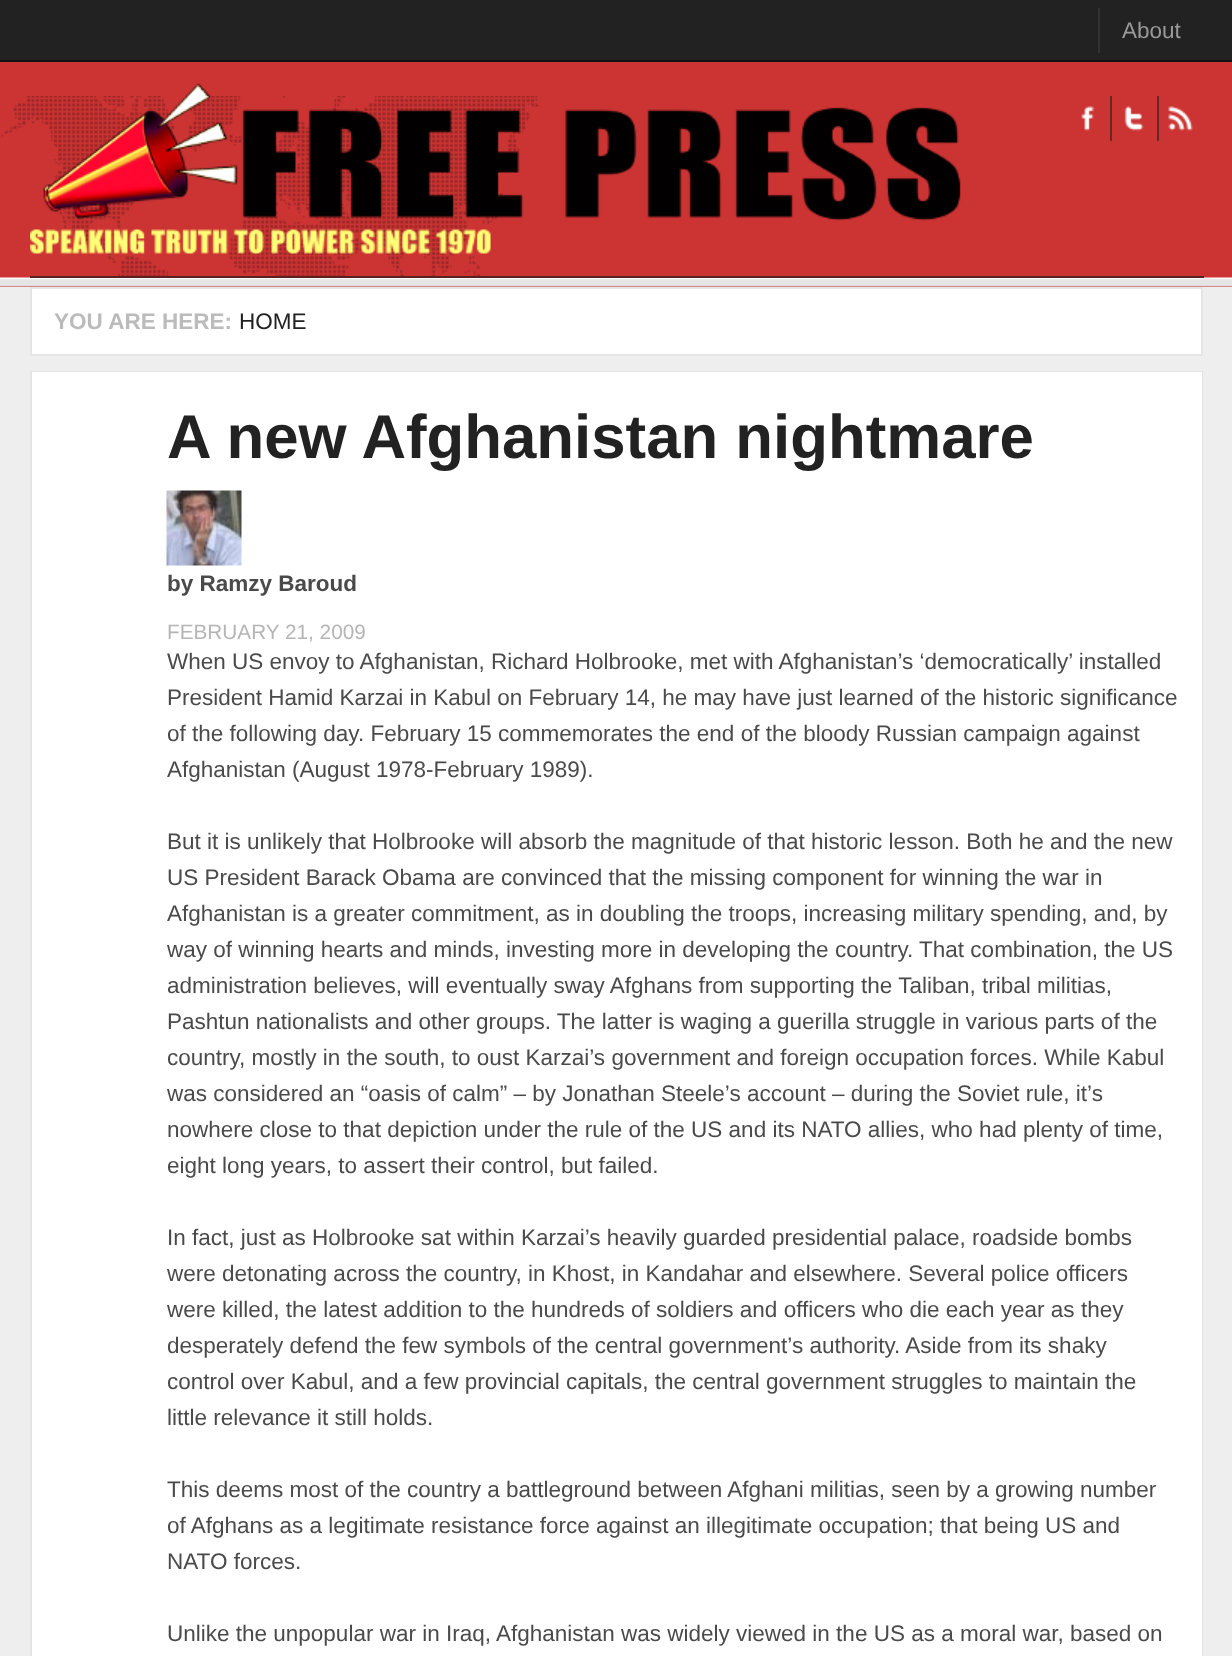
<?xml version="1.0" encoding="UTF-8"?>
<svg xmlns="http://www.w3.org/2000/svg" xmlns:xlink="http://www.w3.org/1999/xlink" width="1232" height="1656">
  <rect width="100%" height="100%" fill="#eeeeee" />
  <rect width="1232" height="60" fill="#222222" />
  <rect y="60" width="1232" height="2" fill="#111111" />
  <rect x="1098" y="8" width="2" height="45" fill="#333333" />
  <rect y="62" width="1232" height="225" fill="#cc3333" />
  <image x="1" y="96" width="538" height="180" xlink:href="image1.png" />
  <image x="30" y="83" width="931" height="171" xlink:href="image2.png" />
  <image x="1081" y="106" width="13" height="25" xlink:href="image3.png" />
  <image x="1124" y="106" width="20" height="25" xlink:href="image4.png" />
  <rect x="1110" y="96" width="2" height="45" fill="#682725" />
  <image x="1168" y="106" width="25" height="25" xlink:href="image5.png" />
  <rect x="1157" y="96" width="2" height="45" fill="#682725" />
  <image x="0" y="277" width="1232" height="10" xlink:href="image6.png" />
  <rect x="30" y="276" width="1174" height="2" fill="#5b211f" />
  <rect x="31" y="288" width="1171" height="67" fill="#ffffff" stroke="#e5e5e5" stroke-width="2" />
  <rect x="31" y="372" width="1171" height="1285" fill="none" stroke="#e5e5e5" stroke-width="2" />
  <rect x="32" y="372" width="1170" height="1284" fill="#ffffff" />
  <image x="166" y="490" width="76" height="76" xlink:href="image7.png" />
  <text x="1122" y="38" style="font-family: Liberation Sans; font-size: 22.5px; fill: #999999">About</text>
  <text x="54" y="329" style="font-family: Liberation Sans; font-size: 22.5px; font-weight: bold; fill: #bbbbbb">YOU ARE HERE:</text>
  <text x="239" y="329" style="font-family: Liberation Sans; font-size: 22.5px; fill: #222222">HOME</text>
  <text x="167" y="458" style="font-family: Liberation Sans; font-size: 61.75px; font-weight: bold; fill: #222222">A new Afghanistan nightmare</text>
  <text x="167" y="591" style="font-family: Liberation Sans; font-size: 22.5px; font-weight: bold; fill: #4a4a4a">by Ramzy Baroud</text>
  <text x="167" y="639" style="font-family: Liberation Sans; font-size: 20.75px; fill: #b5b5b5">FEBRUARY 21, 2009</text>
  <text x="167" y="669" style="font-family: Liberation Sans; font-size: 22.5px; fill: #4a4a4a">When US envoy to Afghanistan, Richard Holbrooke, met with Afghanistan’s ‘democratically’ installed</text>
  <text x="167" y="705" style="font-family: Liberation Sans; font-size: 22.5px; fill: #4a4a4a">President Hamid Karzai in Kabul on February 14, he may have just learned of the historic significance</text>
  <text x="167" y="741" style="font-family: Liberation Sans; font-size: 22.5px; fill: #4a4a4a">of the following day. February 15 commemorates the end of the bloody Russian campaign against</text>
  <text x="167" y="777" style="font-family: Liberation Sans; font-size: 22.5px; fill: #4a4a4a">Afghanistan (August 1978-February 1989).</text>
  <text x="167" y="849" style="font-family: Liberation Sans; font-size: 22.5px; fill: #4a4a4a">But it is unlikely that Holbrooke will absorb the magnitude of that historic lesson. Both he and the new</text>
  <text x="167" y="885" style="font-family: Liberation Sans; font-size: 22.5px; fill: #4a4a4a">US President Barack Obama are convinced that the missing component for winning the war in</text>
  <text x="167" y="921" style="font-family: Liberation Sans; font-size: 22.5px; fill: #4a4a4a">Afghanistan is a greater commitment, as in doubling the troops, increasing military spending, and, by</text>
  <text x="167" y="957" style="font-family: Liberation Sans; font-size: 22.5px; fill: #4a4a4a">way of winning hearts and minds, investing more in developing the country. That combination, the US</text>
  <text x="167" y="993" style="font-family: Liberation Sans; font-size: 22.5px; fill: #4a4a4a">administration believes, will eventually sway Afghans from supporting the Taliban, tribal militias,</text>
  <text x="167" y="1029" style="font-family: Liberation Sans; font-size: 22.5px; fill: #4a4a4a">Pashtun nationalists and other groups. The latter is waging a guerilla struggle in various parts of the</text>
  <text x="167" y="1065" style="font-family: Liberation Sans; font-size: 22.5px; fill: #4a4a4a">country, mostly in the south, to oust Karzai’s government and foreign occupation forces. While Kabul</text>
  <text x="167" y="1101" style="font-family: Liberation Sans; font-size: 22.5px; fill: #4a4a4a">was considered an “oasis of calm” – by Jonathan Steele’s account – during the Soviet rule, it’s</text>
  <text x="167" y="1137" style="font-family: Liberation Sans; font-size: 22.5px; fill: #4a4a4a">nowhere close to that depiction under the rule of the US and its NATO allies, who had plenty of time,</text>
  <text x="167" y="1173" style="font-family: Liberation Sans; font-size: 22.5px; fill: #4a4a4a">eight long years, to assert their control, but failed.</text>
  <text x="167" y="1245" style="font-family: Liberation Sans; font-size: 22.5px; fill: #4a4a4a">In fact, just as Holbrooke sat within Karzai’s heavily guarded presidential palace, roadside bombs</text>
  <text x="167" y="1281" style="font-family: Liberation Sans; font-size: 22.5px; fill: #4a4a4a">were detonating across the country, in Khost, in Kandahar and elsewhere. Several police officers</text>
  <text x="167" y="1317" style="font-family: Liberation Sans; font-size: 22.5px; fill: #4a4a4a">were killed, the latest addition to the hundreds of soldiers and officers who die each year as they</text>
  <text x="167" y="1353" style="font-family: Liberation Sans; font-size: 22.5px; fill: #4a4a4a">desperately defend the few symbols of the central government’s authority. Aside from its shaky</text>
  <text x="167" y="1389" style="font-family: Liberation Sans; font-size: 22.5px; fill: #4a4a4a">control over Kabul, and a few provincial capitals, the central government struggles to maintain the</text>
  <text x="167" y="1425" style="font-family: Liberation Sans; font-size: 22.5px; fill: #4a4a4a">little relevance it still holds.</text>
  <text x="167" y="1497" style="font-family: Liberation Sans; font-size: 22.5px; fill: #4a4a4a">This deems most of the country a battleground between Afghani militias, seen by a growing number</text>
  <text x="167" y="1533" style="font-family: Liberation Sans; font-size: 22.5px; fill: #4a4a4a">of Afghans as a legitimate resistance force against an illegitimate occupation; that being US and</text>
  <text x="167" y="1569" style="font-family: Liberation Sans; font-size: 22.5px; fill: #4a4a4a">NATO forces.</text>
  <text x="167" y="1641" style="font-family: Liberation Sans; font-size: 22.5px; fill: #4a4a4a">Unlike the unpopular war in Iraq, Afghanistan was widely viewed in the US as a moral war, based on</text>
</svg>
